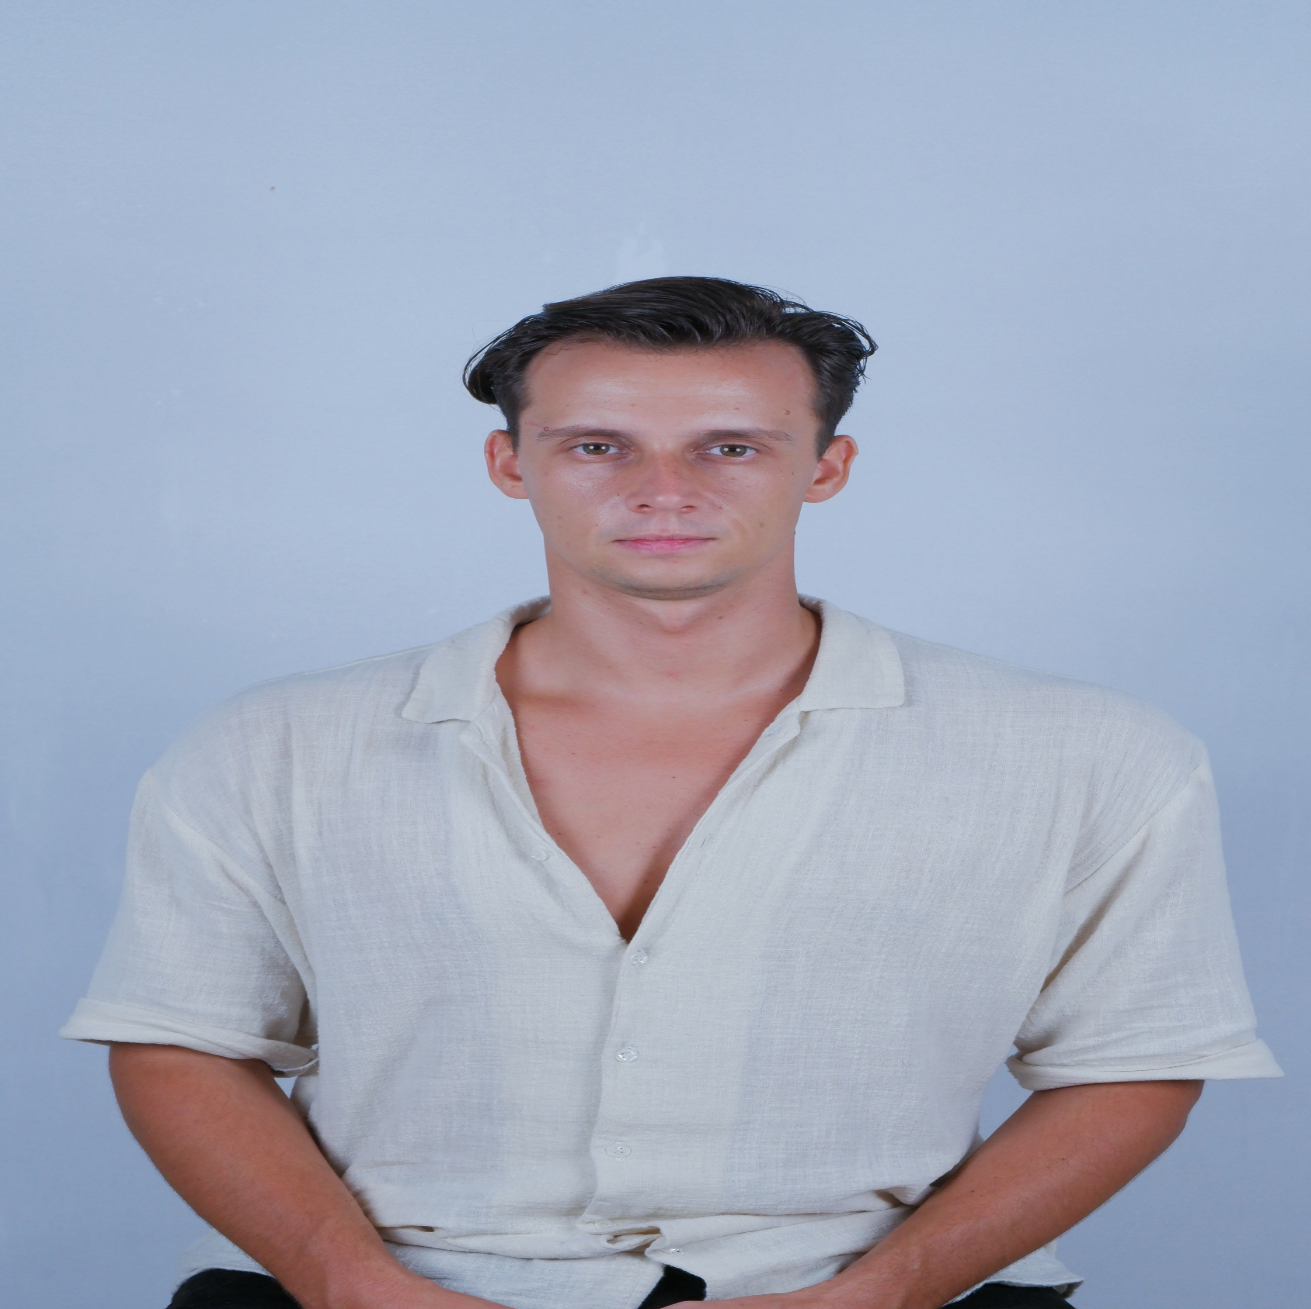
<?xml version="1.0" encoding="UTF-8"?>
<svg xmlns="http://www.w3.org/2000/svg" xmlns:xlink="http://www.w3.org/1999/xlink" width="1311" height="1309">
  <rect width="100%" height="100%" fill="#ffffff" />
  <image x="0" y="0" width="1311" height="1309" xlink:href="image1.png" />
</svg>
